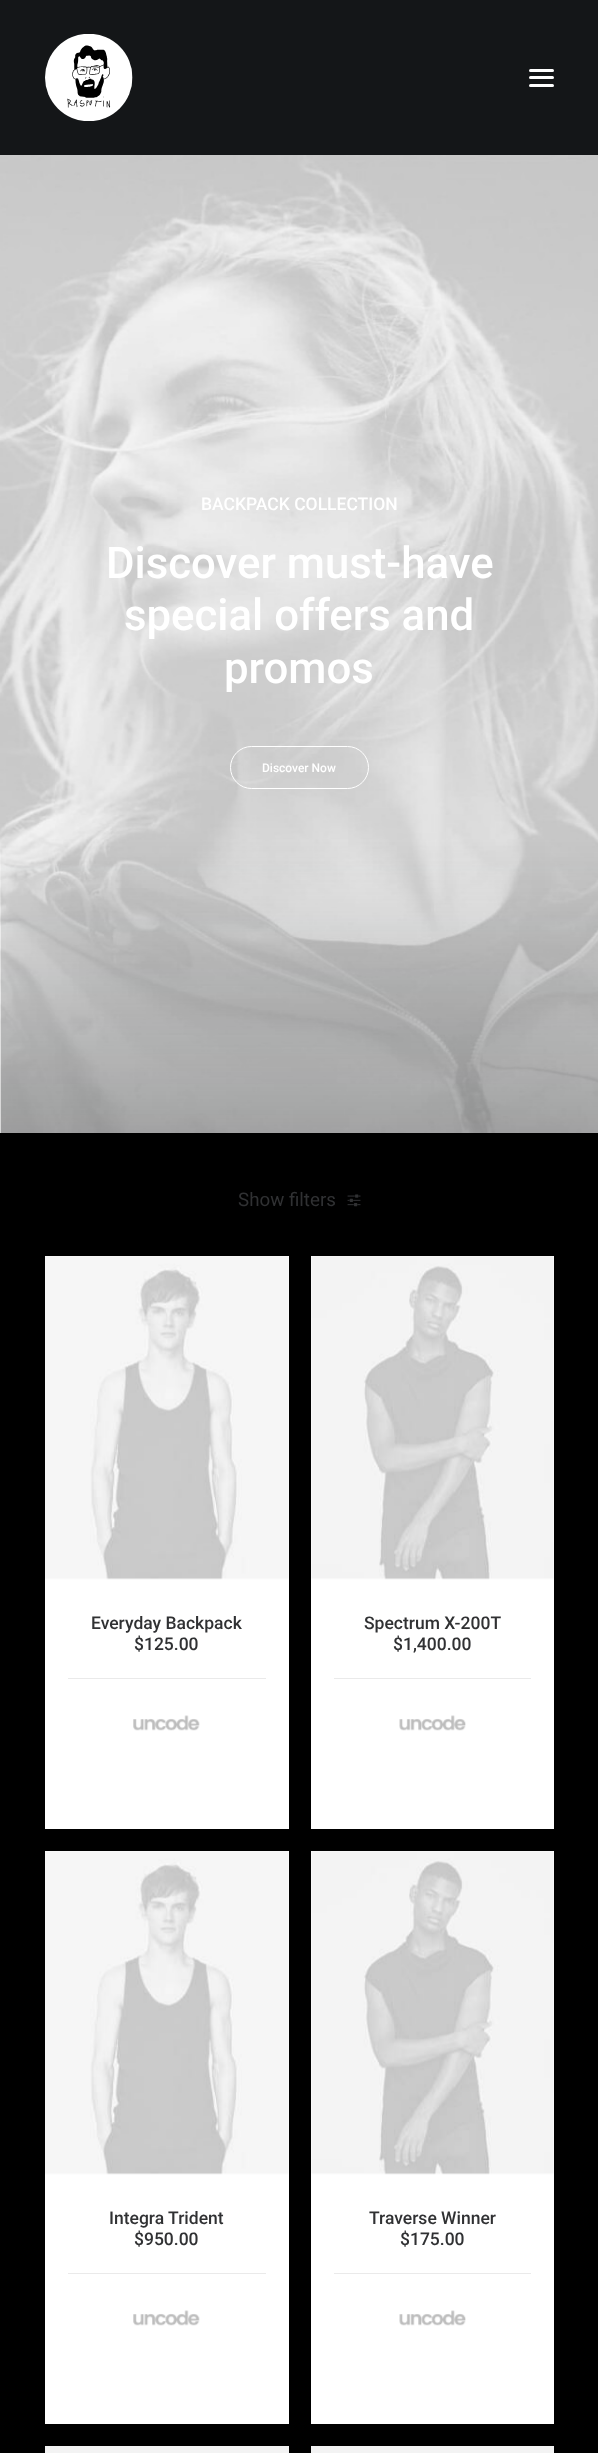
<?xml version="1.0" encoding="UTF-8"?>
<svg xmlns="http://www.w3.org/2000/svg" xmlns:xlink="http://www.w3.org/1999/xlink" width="598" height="2453">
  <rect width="100%" height="100%" fill="#000000" />
  <rect width="598" height="155" fill="#141618" />
  <image x="45" y="34" width="88" height="87" xlink:href="image1.png" />
  <rect x="529" y="76" width="25" height="3" rx="1.5" fill="#ffffff" />
  <rect x="529" y="69" width="25" height="3" rx="1.5" fill="#ffffff" />
  <rect x="529" y="84" width="25" height="3" rx="1.5" fill="#ffffff" />
  <image x="0" y="155" width="598" height="978" xlink:href="image2.png" />
  <rect x="230.5" y="746.5" width="138" height="42" rx="21" fill="none" stroke="#ffffff" />
  <image x="347" y="1194" width="14" height="13" xlink:href="image3.png" />
  <rect x="45" y="1256" width="244" height="573" fill="#ffffff" />
  <image x="45" y="1256" width="244" height="324" xlink:href="image4.png" />
  <rect x="68" y="1678" width="198" height="1" fill="#eaeaea" />
  <image x="133" y="1715" width="67" height="16" xlink:href="image5.png" />
  <rect x="311" y="1256" width="243" height="573" fill="#ffffff" />
  <image x="311" y="1256" width="243" height="324" xlink:href="image6.png" />
  <rect x="334" y="1678" width="197" height="1" fill="#eaeaea" />
  <image x="399" y="1715" width="67" height="16" xlink:href="image7.png" />
  <rect x="45" y="1851" width="244" height="573" fill="#ffffff" />
  <image x="45" y="1851" width="244" height="324" xlink:href="image4.png" />
  <rect x="68" y="2273" width="198" height="1" fill="#eaeaea" />
  <image x="133" y="2310" width="67" height="16" xlink:href="image5.png" />
  <rect x="311" y="1851" width="243" height="573" fill="#ffffff" />
  <image x="311" y="1851" width="243" height="324" xlink:href="image6.png" />
  <rect x="334" y="2273" width="197" height="1" fill="#eaeaea" />
  <image x="399" y="2310" width="67" height="16" xlink:href="image7.png" />
  <rect x="45" y="2446" width="244" height="7" fill="#f3f3f3" />
  <rect x="311" y="2446" width="243" height="7" fill="#f3f3f3" />
  <text x="201" y="510" style="font-family: Roboto; font-size: 17.5px; font-weight: 500; fill: #ffffff">BACKPACK COLLECTION</text>
  <text x="106" y="578" style="font-family: Roboto; font-size: 43.75px; font-weight: 500; fill: #ffffff">Discover must-have</text>
  <text x="124" y="630" style="font-family: Roboto; font-size: 43.75px; font-weight: 500; fill: #ffffff">special offers and</text>
  <text x="224" y="683" style="font-family: Roboto; font-size: 43.75px; font-weight: 500; fill: #ffffff">promos</text>
  <text x="262" y="772" style="font-family: Roboto; font-size: 12px; font-weight: 500; fill: #ffffff">Discover Now</text>
  <text x="238" y="1206" style="font-family: Roboto; font-size: 18.75px; fill: #303133">Show filters</text>
  <text x="91" y="1629" style="font-family: Roboto; font-size: 17.5px; font-weight: 500; fill: #303133">Everyday Backpack</text>
  <text x="134" y="1650" style="font-family: Roboto; font-size: 17.5px; font-weight: 500; fill: #303133">$125.00</text>
  <text x="364" y="1629" style="font-family: Roboto; font-size: 17.5px; font-weight: 500; fill: #303133">Spectrum X-200T</text>
  <text x="393" y="1650" style="font-family: Roboto; font-size: 17.5px; font-weight: 500; fill: #303133">$1,400.00</text>
  <text x="109" y="2224" style="font-family: Roboto; font-size: 17.5px; font-weight: 500; fill: #303133">Integra Trident</text>
  <text x="134" y="2245" style="font-family: Roboto; font-size: 17.5px; font-weight: 500; fill: #303133">$950.00</text>
  <text x="369" y="2224" style="font-family: Roboto; font-size: 17.5px; font-weight: 500; fill: #303133">Traverse Winner</text>
  <text x="400" y="2245" style="font-family: Roboto; font-size: 17.5px; font-weight: 500; fill: #303133">$175.00</text>
</svg>
